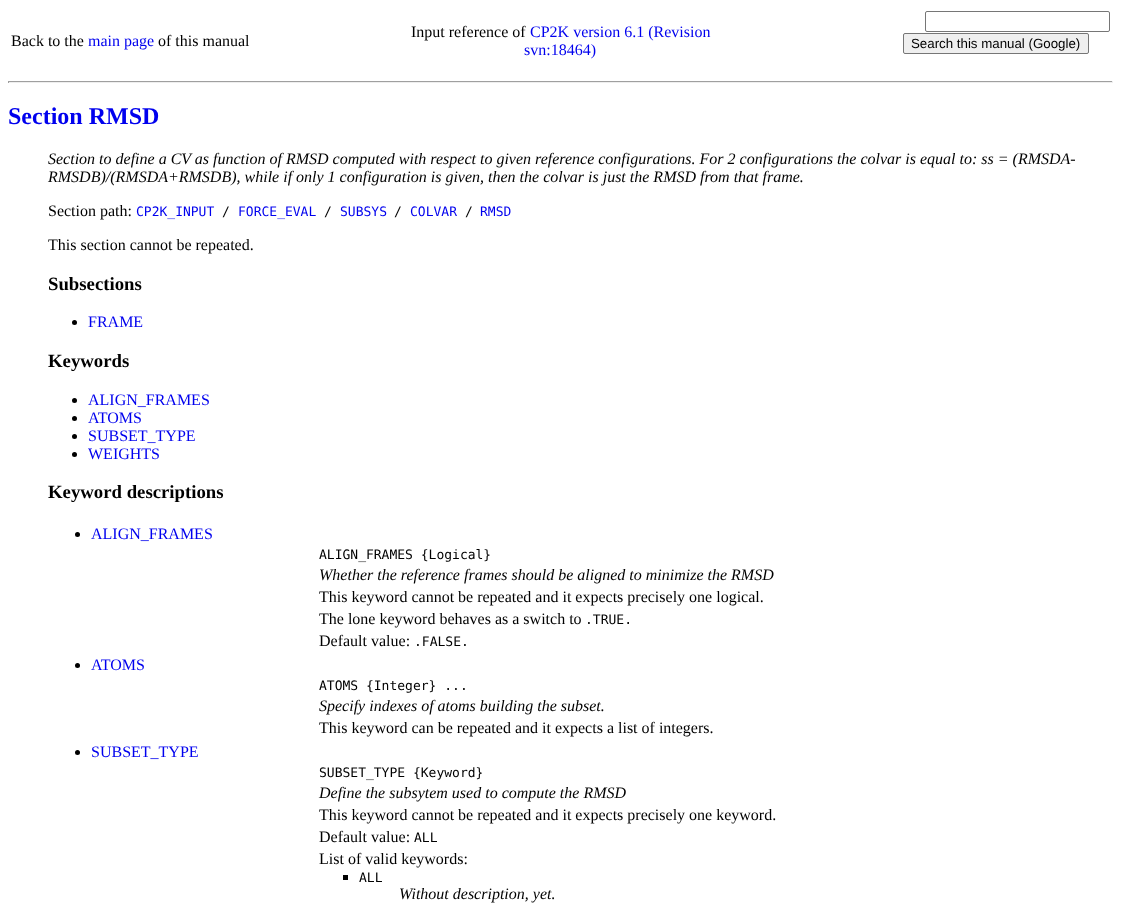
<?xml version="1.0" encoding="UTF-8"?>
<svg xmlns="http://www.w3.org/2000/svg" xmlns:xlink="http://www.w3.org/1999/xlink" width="1121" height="910">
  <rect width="100%" height="100%" fill="#ffffff" />
  <rect x="925.5" y="11.5" width="184" height="20" rx="1.5" fill="none" stroke="#767676" />
  <rect x="903.5" y="33.5" width="185" height="20" rx="1.5" fill="#efefef" stroke="#767676" />
  <rect x="8" y="81" width="1105" height="1" fill="#9f9f9f" />
  <rect x="1112" y="81" width="1" height="2" fill="#eeeeee" />
  <rect x="8" y="82" width="1105" height="1" fill="#eeeeee" />
  <rect x="8" y="81" width="1" height="2" fill="#9f9f9f" />
  <circle cx="74.5" cy="322.5" r="2.5" fill="#000000" />
  <circle cx="74.5" cy="400.5" r="2.5" fill="#000000" />
  <circle cx="74.5" cy="418.5" r="2.5" fill="#000000" />
  <circle cx="74.5" cy="436.5" r="2.5" fill="#000000" />
  <circle cx="74.5" cy="454.5" r="2.5" fill="#000000" />
  <circle cx="77.5" cy="534.5" r="2.5" fill="#000000" />
  <circle cx="77.5" cy="665.5" r="2.5" fill="#000000" />
  <circle cx="77.5" cy="752.5" r="2.5" fill="#000000" />
  <rect x="343" y="875" width="5" height="5" fill="#000000" />
  <text x="11" y="46" style="font-family: Liberation Serif; font-size: 16px; fill: #000000">Back to the</text>
  <text x="88" y="46" style="font-family: Liberation Serif; font-size: 16px; fill: #0000ee">main page</text>
  <text x="158" y="46" style="font-family: Liberation Serif; font-size: 16px; fill: #000000">of this manual</text>
  <text x="411" y="37" style="font-family: Liberation Serif; font-size: 16px; fill: #000000">Input reference of</text>
  <text x="530" y="37" style="font-family: Liberation Serif; font-size: 16px; fill: #0000ee">CP2K version 6.1 (Revision</text>
  <text x="524" y="55" style="font-family: Liberation Serif; font-size: 16px; fill: #0000ee">svn:18464)</text>
  <text x="911" y="48" style="font-family: Liberation Sans; font-size: 13.3px; fill: #000000">Search this manual (Google)</text>
  <text x="8" y="124" style="font-family: Liberation Serif; font-size: 24px; font-weight: bold; fill: #0000ee">Section RMSD</text>
  <text x="48" y="164" style="font-family: Liberation Serif; font-size: 16px; font-style: italic; fill: #000000">Section to define a CV as function of RMSD computed with respect to given reference configurations. For 2 configurations the colvar is equal to: ss = (RMSDA-</text>
  <text x="48" y="182" style="font-family: Liberation Serif; font-size: 16px; font-style: italic; fill: #000000">RMSDB)/(RMSDA+RMSDB), while if only 1 configuration is given, then the colvar is just the RMSD from that frame.</text>
  <text x="48" y="216" style="font-family: Liberation Serif; font-size: 16px; fill: #000000">Section path:</text>
  <text x="136" y="216" style="font-family: DejaVu Sans Mono; font-size: 13px; fill: #0000ee">CP2K_INPUT</text>
  <text x="222" y="216" style="font-family: DejaVu Sans Mono; font-size: 13px; fill: #000000">/</text>
  <text x="238" y="216" style="font-family: DejaVu Sans Mono; font-size: 13px; fill: #0000ee">FORCE_EVAL</text>
  <text x="324" y="216" style="font-family: DejaVu Sans Mono; font-size: 13px; fill: #000000">/</text>
  <text x="340" y="216" style="font-family: DejaVu Sans Mono; font-size: 13px; fill: #0000ee">SUBSYS</text>
  <text x="394" y="216" style="font-family: DejaVu Sans Mono; font-size: 13px; fill: #000000">/</text>
  <text x="410" y="216" style="font-family: DejaVu Sans Mono; font-size: 13px; fill: #0000ee">COLVAR</text>
  <text x="465" y="216" style="font-family: DejaVu Sans Mono; font-size: 13px; fill: #000000">/</text>
  <text x="480" y="216" style="font-family: DejaVu Sans Mono; font-size: 13px; fill: #0000ee">RMSD</text>
  <text x="48" y="250" style="font-family: Liberation Serif; font-size: 16px; fill: #000000">This section cannot be repeated.</text>
  <text x="48" y="290" style="font-family: Liberation Serif; font-size: 18.75px; font-weight: bold; fill: #000000">Subsections</text>
  <text x="88" y="327" style="font-family: Liberation Serif; font-size: 16px; fill: #0000ee">FRAME</text>
  <text x="48" y="367" style="font-family: Liberation Serif; font-size: 18.75px; font-weight: bold; fill: #000000">Keywords</text>
  <text x="88" y="405" style="font-family: Liberation Serif; font-size: 16px; fill: #0000ee">ALIGN_FRAMES</text>
  <text x="88" y="423" style="font-family: Liberation Serif; font-size: 16px; fill: #0000ee">ATOMS</text>
  <text x="88" y="441" style="font-family: Liberation Serif; font-size: 16px; fill: #0000ee">SUBSET_TYPE</text>
  <text x="88" y="459" style="font-family: Liberation Serif; font-size: 16px; fill: #0000ee">WEIGHTS</text>
  <text x="48" y="498" style="font-family: Liberation Serif; font-size: 18.75px; font-weight: bold; fill: #000000">Keyword descriptions</text>
  <text x="91" y="539" style="font-family: Liberation Serif; font-size: 16px; fill: #0000ee">ALIGN_FRAMES</text>
  <text x="319" y="559" style="font-family: DejaVu Sans Mono; font-size: 13px; fill: #000000">ALIGN_FRAMES {Logical}</text>
  <text x="319" y="580" style="font-family: Liberation Serif; font-size: 16px; font-style: italic; fill: #000000">Whether the reference frames should be aligned to minimize the RMSD</text>
  <text x="319" y="602" style="font-family: Liberation Serif; font-size: 16px; fill: #000000">This keyword cannot be repeated and it expects precisely one logical.</text>
  <text x="319" y="624" style="font-family: Liberation Serif; font-size: 16px; fill: #000000">The lone keyword behaves as a switch to</text>
  <text x="585" y="624" style="font-family: DejaVu Sans Mono; font-size: 13px; fill: #000000">.TRUE.</text>
  <text x="319" y="646" style="font-family: Liberation Serif; font-size: 16px; fill: #000000">Default value:</text>
  <text x="414" y="646" style="font-family: DejaVu Sans Mono; font-size: 13px; fill: #000000">.FALSE.</text>
  <text x="91" y="670" style="font-family: Liberation Serif; font-size: 16px; fill: #0000ee">ATOMS</text>
  <text x="319" y="690" style="font-family: DejaVu Sans Mono; font-size: 13px; fill: #000000">ATOMS {Integer} ...</text>
  <text x="319" y="711" style="font-family: Liberation Serif; font-size: 16px; font-style: italic; fill: #000000">Specify indexes of atoms building the subset.</text>
  <text x="319" y="733" style="font-family: Liberation Serif; font-size: 16px; fill: #000000">This keyword can be repeated and it expects a list of integers.</text>
  <text x="91" y="757" style="font-family: Liberation Serif; font-size: 16px; fill: #0000ee">SUBSET_TYPE</text>
  <text x="319" y="777" style="font-family: DejaVu Sans Mono; font-size: 13px; fill: #000000">SUBSET_TYPE {Keyword}</text>
  <text x="319" y="798" style="font-family: Liberation Serif; font-size: 16px; font-style: italic; fill: #000000">Define the subsytem used to compute the RMSD</text>
  <text x="319" y="820" style="font-family: Liberation Serif; font-size: 16px; fill: #000000">This keyword cannot be repeated and it expects precisely one keyword.</text>
  <text x="319" y="842" style="font-family: Liberation Serif; font-size: 16px; fill: #000000">Default value:</text>
  <text x="414" y="842" style="font-family: DejaVu Sans Mono; font-size: 13px; fill: #000000">ALL</text>
  <text x="319" y="864" style="font-family: Liberation Serif; font-size: 16px; fill: #000000">List of valid keywords:</text>
  <text x="359" y="882" style="font-family: DejaVu Sans Mono; font-size: 13px; fill: #000000">ALL</text>
  <text x="399" y="899" style="font-family: Liberation Serif; font-size: 16px; font-style: italic; fill: #000000">Without description, yet.</text>
</svg>
